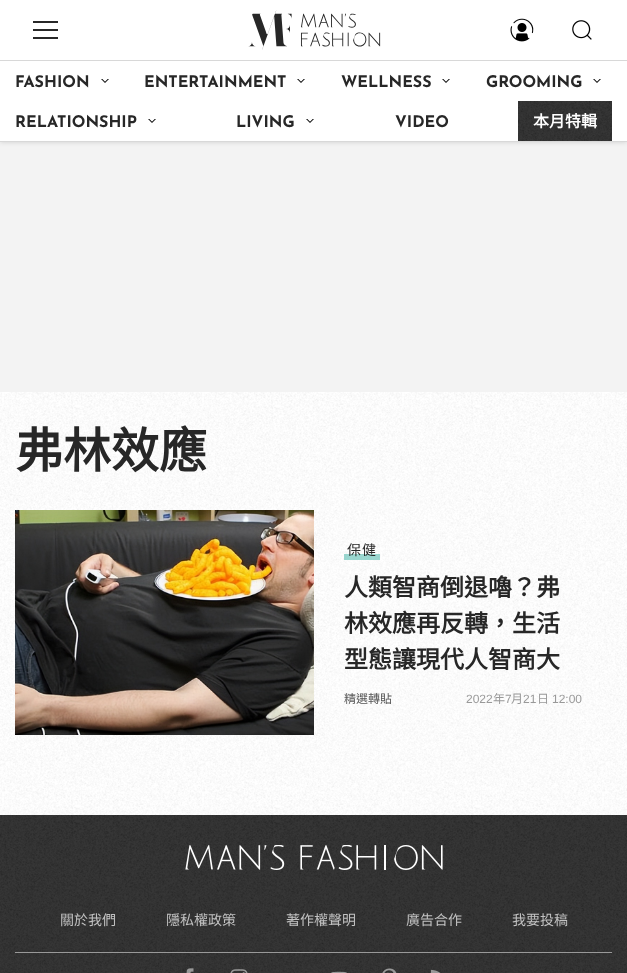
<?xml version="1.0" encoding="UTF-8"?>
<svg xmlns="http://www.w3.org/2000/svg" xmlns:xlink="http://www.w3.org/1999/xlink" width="627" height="973">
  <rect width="100%" height="100%" fill="#ffffff" />
  <image x="0" y="392" width="627" height="423" xlink:href="image1.png" />
  <rect y="142" width="627" height="250" fill="#f3f3f3" />
  <rect width="627" height="142" fill="#000000" fill-opacity="0.15" filter="blur(2.5px)" />
  <rect width="627" height="141" fill="#ffffff" />
  <rect x="33" y="21" width="25" height="2" fill="#272727" />
  <rect x="33" y="29" width="25" height="2" fill="#272727" />
  <rect x="33" y="37" width="25" height="2" fill="#272727" />
  <image x="248" y="10" width="133" height="40" xlink:href="image2.png" />
  <image x="510" y="18" width="24" height="24" xlink:href="image3.png" />
  <image x="572" y="20" width="20" height="20" xlink:href="image4.png" />
  <rect y="60" width="627" height="1" fill="#d8d8d8" />
  <rect y="141" width="627" height="1" fill="#d8d8d8" />
  <image x="101" y="79" width="8" height="4" xlink:href="image5.png" />
  <image x="297" y="79" width="8" height="4" xlink:href="image5.png" />
  <image x="442" y="79" width="8" height="4" xlink:href="image5.png" />
  <image x="593" y="79" width="8" height="4" xlink:href="image5.png" />
  <image x="148" y="119" width="8" height="4" xlink:href="image5.png" />
  <image x="306" y="119" width="8" height="4" xlink:href="image5.png" />
  <rect x="518" y="101" width="94" height="40" fill="#272727" />
  <image x="518" y="101" width="94" height="40" xlink:href="image6.png" />
  <image x="15" y="510" width="299" height="225" xlink:href="image7.png" />
  <rect x="344" y="554" width="36" height="6" fill="#71c6bc" fill-opacity="0.7" />
  <rect y="815" width="627" height="158" fill="#272727" />
  <image x="0" y="815" width="627" height="158" xlink:href="image8.png" />
  <image x="185" y="845" width="258" height="25" xlink:href="image9.png" />
  <rect x="15" y="952" width="597" height="1" fill="#999999" />
  <image x="186" y="968" width="8" height="5" xlink:href="image10.png" />
  <image x="230" y="969" width="18" height="4" xlink:href="image11.png" />
  <image x="331" y="971" width="16" height="2" xlink:href="image12.png" />
  <image x="382" y="968" width="15" height="5" xlink:href="image13.png" />
  <image x="430" y="969" width="11" height="4" xlink:href="image14.png" />
  <text x="15" y="87" style="font-family: Josefin Sans; font-size: 16px; font-weight: bold; fill: #272727">FASHION</text>
  <text x="144" y="87" style="font-family: Josefin Sans; font-size: 16px; font-weight: bold; fill: #272727">ENTERTAINMENT</text>
  <text x="341" y="87" style="font-family: Josefin Sans; font-size: 16px; font-weight: bold; fill: #272727">WELLNESS</text>
  <text x="486" y="87" style="font-family: Josefin Sans; font-size: 16px; font-weight: bold; fill: #272727">GROOMING</text>
  <text x="15" y="127" style="font-family: Josefin Sans; font-size: 16px; font-weight: bold; fill: #272727">RELATIONSHIP</text>
  <text x="236" y="127" style="font-family: Josefin Sans; font-size: 16px; font-weight: bold; fill: #272727">LIVING</text>
  <text x="395" y="127" style="font-family: Josefin Sans; font-size: 16px; font-weight: bold; fill: #272727">VIDEO</text>
  <text x="533" y="127" style="font-family: Noto Sans CJK TC; font-size: 16px; font-weight: bold; fill: #ffffff">本月特輯</text>
  <text x="15" y="468" style="font-family: Noto Sans CJK TC; font-size: 48px; font-weight: bold; fill: #272727">弗林效應</text>
  <text x="347" y="555" style="font-family: Noto Sans CJK TC; font-size: 14px; letter-spacing: 1px; fill: #272727">保健</text>
  <text x="344" y="596" style="font-family: Noto Sans CJK TC; font-size: 24px; font-weight: bold; fill: #272727">人類智商倒退嚕？弗</text>
  <text x="344" y="632" style="font-family: Noto Sans CJK TC; font-size: 24px; font-weight: bold; fill: #272727">林效應再反轉，生活</text>
  <text x="344" y="668" style="font-family: Noto Sans CJK TC; font-size: 24px; font-weight: bold; fill: #272727">型態讓現代人智商大</text>
  <text x="344" y="703" style="font-family: Noto Sans CJK TC; font-size: 12px; fill: #555555">精選轉貼</text>
  <text x="466" y="703" style="font-family: Liberation Sans; font-size: 12px; fill: #999999">2022</text>
  <text x="493" y="703" style="font-family: Noto Sans CJK TC; font-size: 12px; fill: #999999">年</text>
  <text x="505" y="703" style="font-family: Liberation Sans; font-size: 12px; fill: #999999">7</text>
  <text x="511" y="703" style="font-family: Noto Sans CJK TC; font-size: 12px; fill: #999999">月</text>
  <text x="523" y="703" style="font-family: Liberation Sans; font-size: 12px; fill: #999999">21</text>
  <text x="537" y="703" style="font-family: Noto Sans CJK TC; font-size: 12px; fill: #999999">日</text>
  <text x="552" y="703" style="font-family: Liberation Sans; font-size: 12px; fill: #999999">12:00</text>
  <text x="60" y="925" style="font-family: Noto Sans CJK TC; font-size: 14px; fill: #c2c2c2">關於我們</text>
  <text x="166" y="925" style="font-family: Noto Sans CJK TC; font-size: 14px; fill: #c2c2c2">隱私權政策</text>
  <text x="286" y="925" style="font-family: Noto Sans CJK TC; font-size: 14px; fill: #c2c2c2">著作權聲明</text>
  <text x="406" y="925" style="font-family: Noto Sans CJK TC; font-size: 14px; fill: #c2c2c2">廣告合作</text>
  <text x="512" y="925" style="font-family: Noto Sans CJK TC; font-size: 14px; fill: #c2c2c2">我要投稿</text>
</svg>
